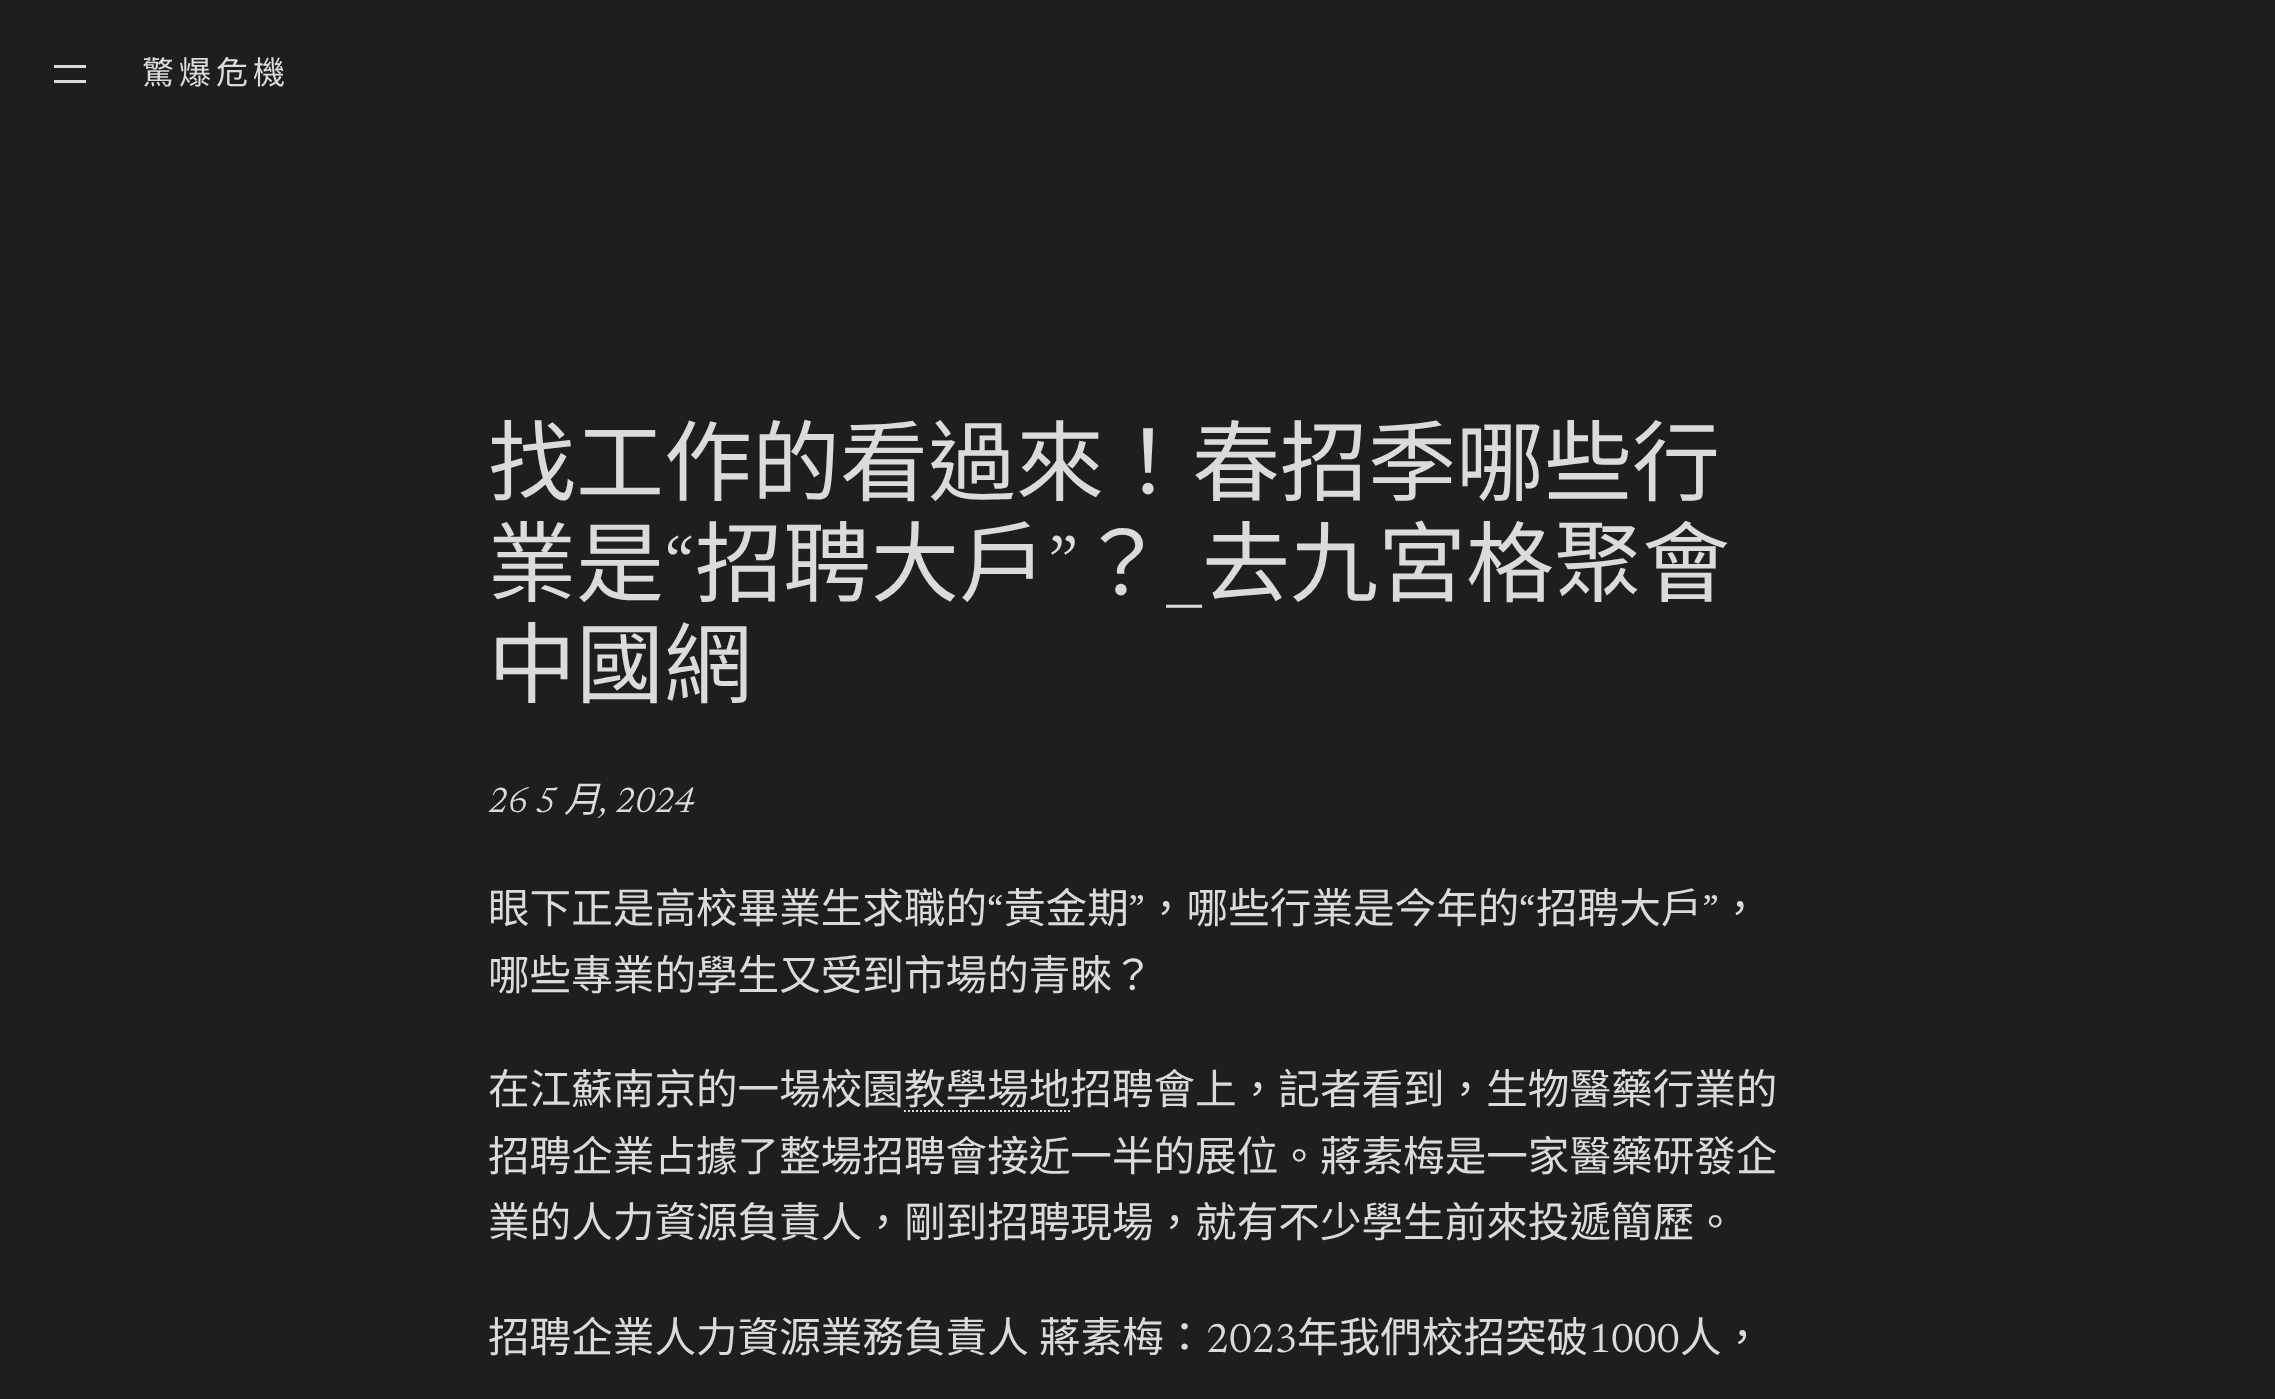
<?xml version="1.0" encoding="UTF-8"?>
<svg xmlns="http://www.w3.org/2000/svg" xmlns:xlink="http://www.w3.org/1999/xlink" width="2275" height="1399">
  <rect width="100%" height="100%" fill="#1e1e1e" />
  <rect x="54" y="65" width="32" height="3" fill="#dbdbdb" />
  <rect x="54" y="80" width="32" height="3" fill="#dbdbdb" />
  <path d="M 904 1111 h 166.5" fill="none" stroke="#dbdbdb" stroke-width="2" stroke-dasharray="2 2" />
  <text x="142" y="84" style="font-family: Noto Sans CJK TC; font-size: 32px; letter-spacing: 5px; fill: #dbdbdb">驚爆危機</text>
  <text x="488" y="494" style="font-family: Noto Sans CJK TC; font-size: 88px; fill: #dbdbdb">找工作的看過來！春招季哪些行</text>
  <text x="488" y="595" style="font-family: Noto Sans CJK TC; font-size: 88px; fill: #dbdbdb">業是</text>
  <text x="664" y="595" style="font-family: Newsreader; font-size: 88px; font-weight: 300; fill: #dbdbdb">“</text>
  <text x="695" y="595" style="font-family: Noto Sans CJK TC; font-size: 88px; fill: #dbdbdb">招聘大戶</text>
  <text x="1047" y="595" style="font-family: Newsreader; font-size: 88px; font-weight: 300; fill: #dbdbdb">”</text>
  <text x="1078" y="595" style="font-family: Noto Sans CJK TC; font-size: 88px; fill: #dbdbdb">？</text>
  <text x="1202" y="595" style="font-family: Noto Sans CJK TC; font-size: 88px; fill: #dbdbdb">去九宮格聚會</text>
  <text x="1166" y="595" style="font-family: Newsreader; font-size: 88px; font-weight: 300; fill: #dbdbdb">_</text>
  <text x="488" y="696" style="font-family: Noto Sans CJK TC; font-size: 88px; fill: #dbdbdb">中國網</text>
  <text x="488" y="812" style="font-family: Newsreader; font-size: 36px; font-style: italic; fill: #dbdbdb">26 5</text>
  <text x="564" y="812" style="font-family: Noto Sans CJK TC; font-size: 36px; font-style: italic; fill: #dbdbdb">月</text>
  <text x="600" y="812" style="font-family: Newsreader; font-size: 36px; font-style: italic; fill: #dbdbdb">, 2024</text>
  <text x="488" y="923" style="font-family: Noto Sans CJK TC; font-size: 41.6px; fill: #dbdbdb">眼下正是高校畢業生求職的</text>
  <text x="987" y="923" style="font-family: Newsreader; font-size: 41.6px; fill: #dbdbdb">“</text>
  <text x="1004" y="923" style="font-family: Noto Sans CJK TC; font-size: 41.6px; fill: #dbdbdb">黃金期</text>
  <text x="1128" y="923" style="font-family: Newsreader; font-size: 41.6px; fill: #dbdbdb">”</text>
  <text x="1145" y="923" style="font-family: Noto Sans CJK TC; font-size: 41.6px; fill: #dbdbdb">，哪些行業是今年的</text>
  <text x="1519" y="923" style="font-family: Newsreader; font-size: 41.6px; fill: #dbdbdb">“</text>
  <text x="1536" y="923" style="font-family: Noto Sans CJK TC; font-size: 41.6px; fill: #dbdbdb">招聘大戶</text>
  <text x="1702" y="923" style="font-family: Newsreader; font-size: 41.6px; fill: #dbdbdb">”</text>
  <text x="1719" y="923" style="font-family: Noto Sans CJK TC; font-size: 41.6px; fill: #dbdbdb">，</text>
  <text x="488" y="990" style="font-family: Noto Sans CJK TC; font-size: 41.6px; fill: #dbdbdb">哪些專業的學生又受到市場的青睞？</text>
  <text x="488" y="1104" style="font-family: Noto Sans CJK TC; font-size: 41.6px; fill: #dbdbdb">在江蘇南京的一場校園教學場地招聘會上，記者看到，生物醫藥行業的</text>
  <text x="488" y="1171" style="font-family: Noto Sans CJK TC; font-size: 41.6px; fill: #dbdbdb">招聘企業占據了整場招聘會接近一半的展位。蔣素梅是一家醫藥研發企</text>
  <text x="488" y="1237" style="font-family: Noto Sans CJK TC; font-size: 41.6px; fill: #dbdbdb">業的人力資源負責人，剛到招聘現場，就有不少學生前來投遞簡歷。</text>
  <text x="488" y="1352" word-spacing="1" style="font-family: Noto Sans CJK TC; font-size: 41.6px; fill: #dbdbdb">招聘企業人力資源業務負責人 蔣素梅：</text>
  <text x="1206" y="1352" style="font-family: Newsreader; font-size: 41.6px; fill: #dbdbdb">2023</text>
  <text x="1297" y="1352" style="font-family: Noto Sans CJK TC; font-size: 41.6px; fill: #dbdbdb">年我們校招突破</text>
  <text x="1588" y="1352" style="font-family: Newsreader; font-size: 41.6px; fill: #dbdbdb">1000</text>
  <text x="1680" y="1352" style="font-family: Noto Sans CJK TC; font-size: 41.6px; fill: #dbdbdb">人，</text>
</svg>
